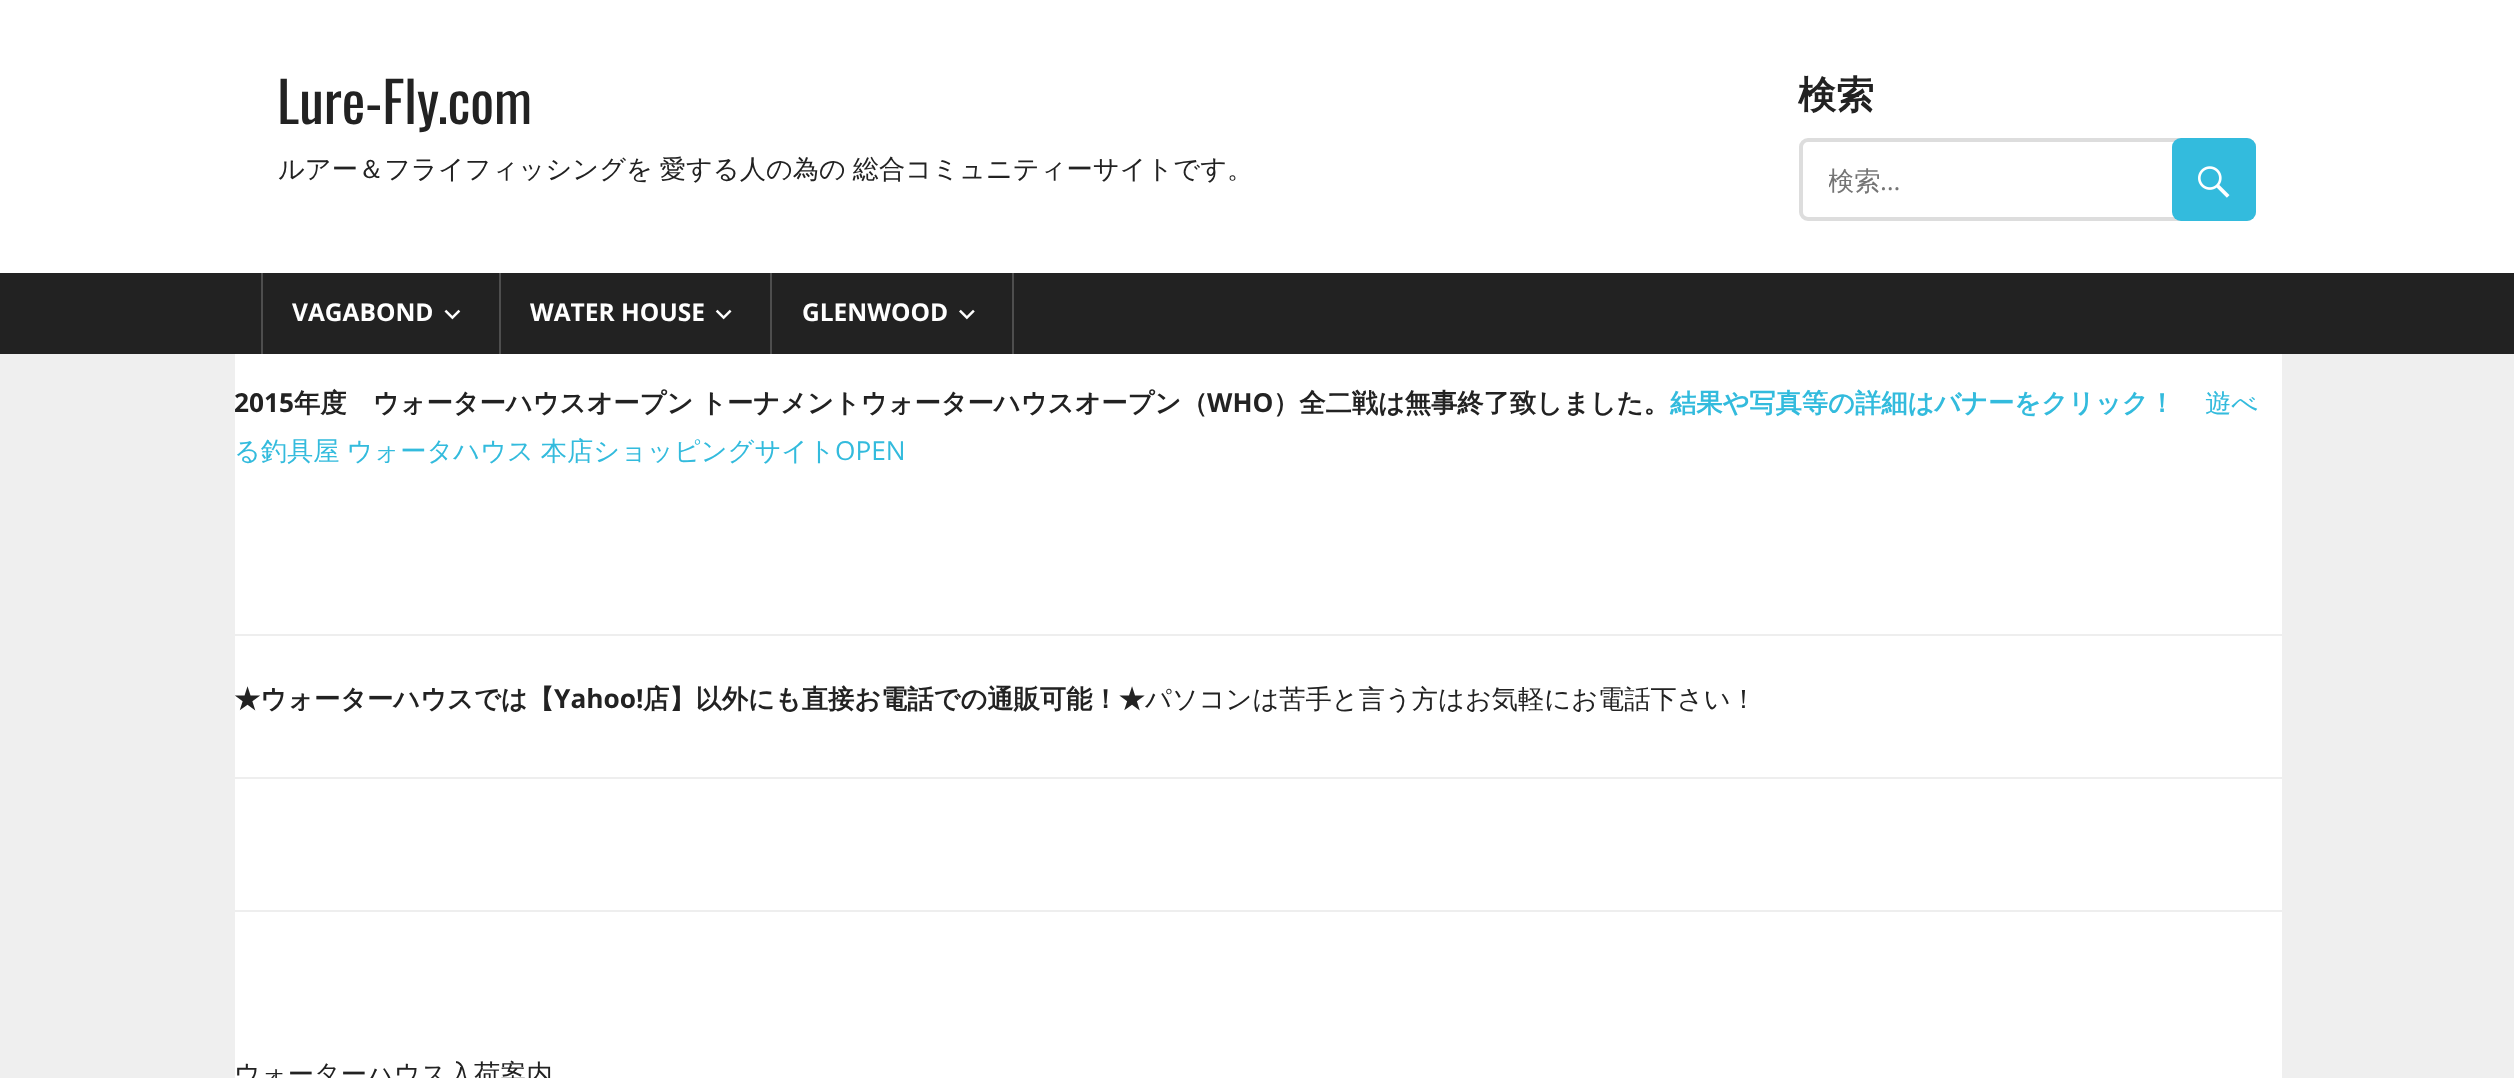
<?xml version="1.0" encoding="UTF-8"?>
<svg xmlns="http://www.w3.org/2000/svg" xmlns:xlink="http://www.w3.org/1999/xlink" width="2514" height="1078">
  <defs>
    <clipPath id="clip1"><rect x="1829" y="163" width="338" height="37" /></clipPath>
  </defs>
  <rect width="100%" height="100%" fill="#efefef" />
  <rect width="2514" height="273" fill="#ffffff" />
  <rect x="1801" y="140" width="453" height="79" rx="7" fill="none" stroke="#dddddd" stroke-width="4" />
  <rect x="2172" y="138" width="84" height="83" rx="9" fill="#33bbdd" />
  <image x="2198" y="166" width="32" height="32" xlink:href="image1.png" />
  <rect y="273" width="2514" height="81" fill="#222222" />
  <rect x="261" y="273" width="2" height="81" fill="#4e4e4e" />
  <rect x="499" y="273" width="2" height="81" fill="#4e4e4e" />
  <image x="444" y="309" width="17" height="11" xlink:href="image2.png" />
  <rect x="770" y="273" width="2" height="81" fill="#4e4e4e" />
  <image x="715" y="309" width="17" height="11" xlink:href="image3.png" />
  <rect x="1012" y="273" width="2" height="81" fill="#4e4e4e" />
  <image x="959" y="309" width="16" height="11" xlink:href="image4.png" />
  <rect x="235" y="354" width="2047" height="724" fill="#ffffff" />
  <rect x="235" y="634" width="2047" height="2" fill="#eeeeee" />
  <rect x="235" y="777" width="2047" height="2" fill="#eeeeee" />
  <rect x="235" y="910" width="2047" height="2" fill="#eeeeee" />
  <text x="277" y="124" style="font-family: Oswald; font-size: 56px; fill: #222222">Lure-Fly.com</text>
  <text x="278" y="178" word-spacing="-1" style="font-family: WenQuanYi Zen Hei; font-size: 26.25px; font-weight: 500; fill: #222222">ルアー＆フライフィッシングを 愛する人の為の 総合コミュニティーサイトです。</text>
  <text x="1798" y="108" style="font-family: WenQuanYi Zen Hei; font-size: 38px; font-weight: bold; fill: #222222">検索</text>
  <g clip-path="url(#clip1)">
    <text x="1828" y="190" style="font-family: WenQuanYi Zen Hei; font-size: 26.25px; font-weight: 500; fill: #757575">検索</text>
  </g>
  <text x="1880" y="190" style="font-family: Open Sans; font-size: 26.25px; fill: #757575">…</text>
  <text x="292" y="321" style="font-family: Open Sans; font-size: 24.5px; font-weight: bold; fill: #ffffff">VAGABOND</text>
  <text x="530" y="321" style="font-family: Open Sans; font-size: 24.5px; font-weight: bold; fill: #ffffff">WATER HOUSE</text>
  <text x="802" y="321" style="font-family: Open Sans; font-size: 24.5px; font-weight: bold; fill: #ffffff">GLENWOOD</text>
  <text x="234" y="412" style="font-family: Open Sans; font-size: 26.25px; font-weight: bold; fill: #222222">2015</text>
  <text x="294" y="412" word-spacing="-1" style="font-family: WenQuanYi Zen Hei; font-size: 26.25px; font-weight: bold; fill: #222222">年度　ウォーターハウスオープン トーナメントウォーターハウスオープン（</text>
  <text x="1207" y="412" style="font-family: Open Sans; font-size: 26.25px; font-weight: bold; fill: #222222">WHO</text>
  <text x="1273" y="412" style="font-family: WenQuanYi Zen Hei; font-size: 26.25px; font-weight: bold; fill: #222222">）全二戦は無事終了致しました。</text>
  <text x="1670" y="412" style="font-family: WenQuanYi Zen Hei; font-size: 26.25px; font-weight: bold; fill: #33bbdd">結果や写真等の詳細はバナーをクリック！</text>
  <text x="2205" y="412" style="font-family: WenQuanYi Zen Hei; font-size: 26.25px; font-weight: 500; fill: #33bbdd">遊べ</text>
  <text x="234" y="460" word-spacing="-1" style="font-family: WenQuanYi Zen Hei; font-size: 26.25px; font-weight: 500; fill: #33bbdd">る釣具屋 ウォータハウス 本店ショッピングサイト</text>
  <text x="835" y="460" style="font-family: Open Sans; font-size: 26.25px; fill: #33bbdd">OPEN</text>
  <text x="234" y="708" style="font-family: WenQuanYi Zen Hei; font-size: 26.25px; font-weight: bold; fill: #222222">★ウォーターハウスでは【</text>
  <text x="554" y="708" style="font-family: Open Sans; font-size: 26.25px; font-weight: bold; fill: #222222">Yahoo!</text>
  <text x="643" y="708" style="font-family: WenQuanYi Zen Hei; font-size: 26.25px; font-weight: bold; fill: #222222">店】以外にも直接お電話での通販可能！★</text>
  <text x="1145" y="708" style="font-family: WenQuanYi Zen Hei; font-size: 26.25px; font-weight: 500; fill: #222222">パソコンは苦手と言う方はお気軽にお電話下さい！</text>
  <text x="234" y="1083" style="font-family: WenQuanYi Zen Hei; font-size: 26.25px; font-weight: 500; fill: #222222">ウォーターハウス入荷案内</text>
</svg>
